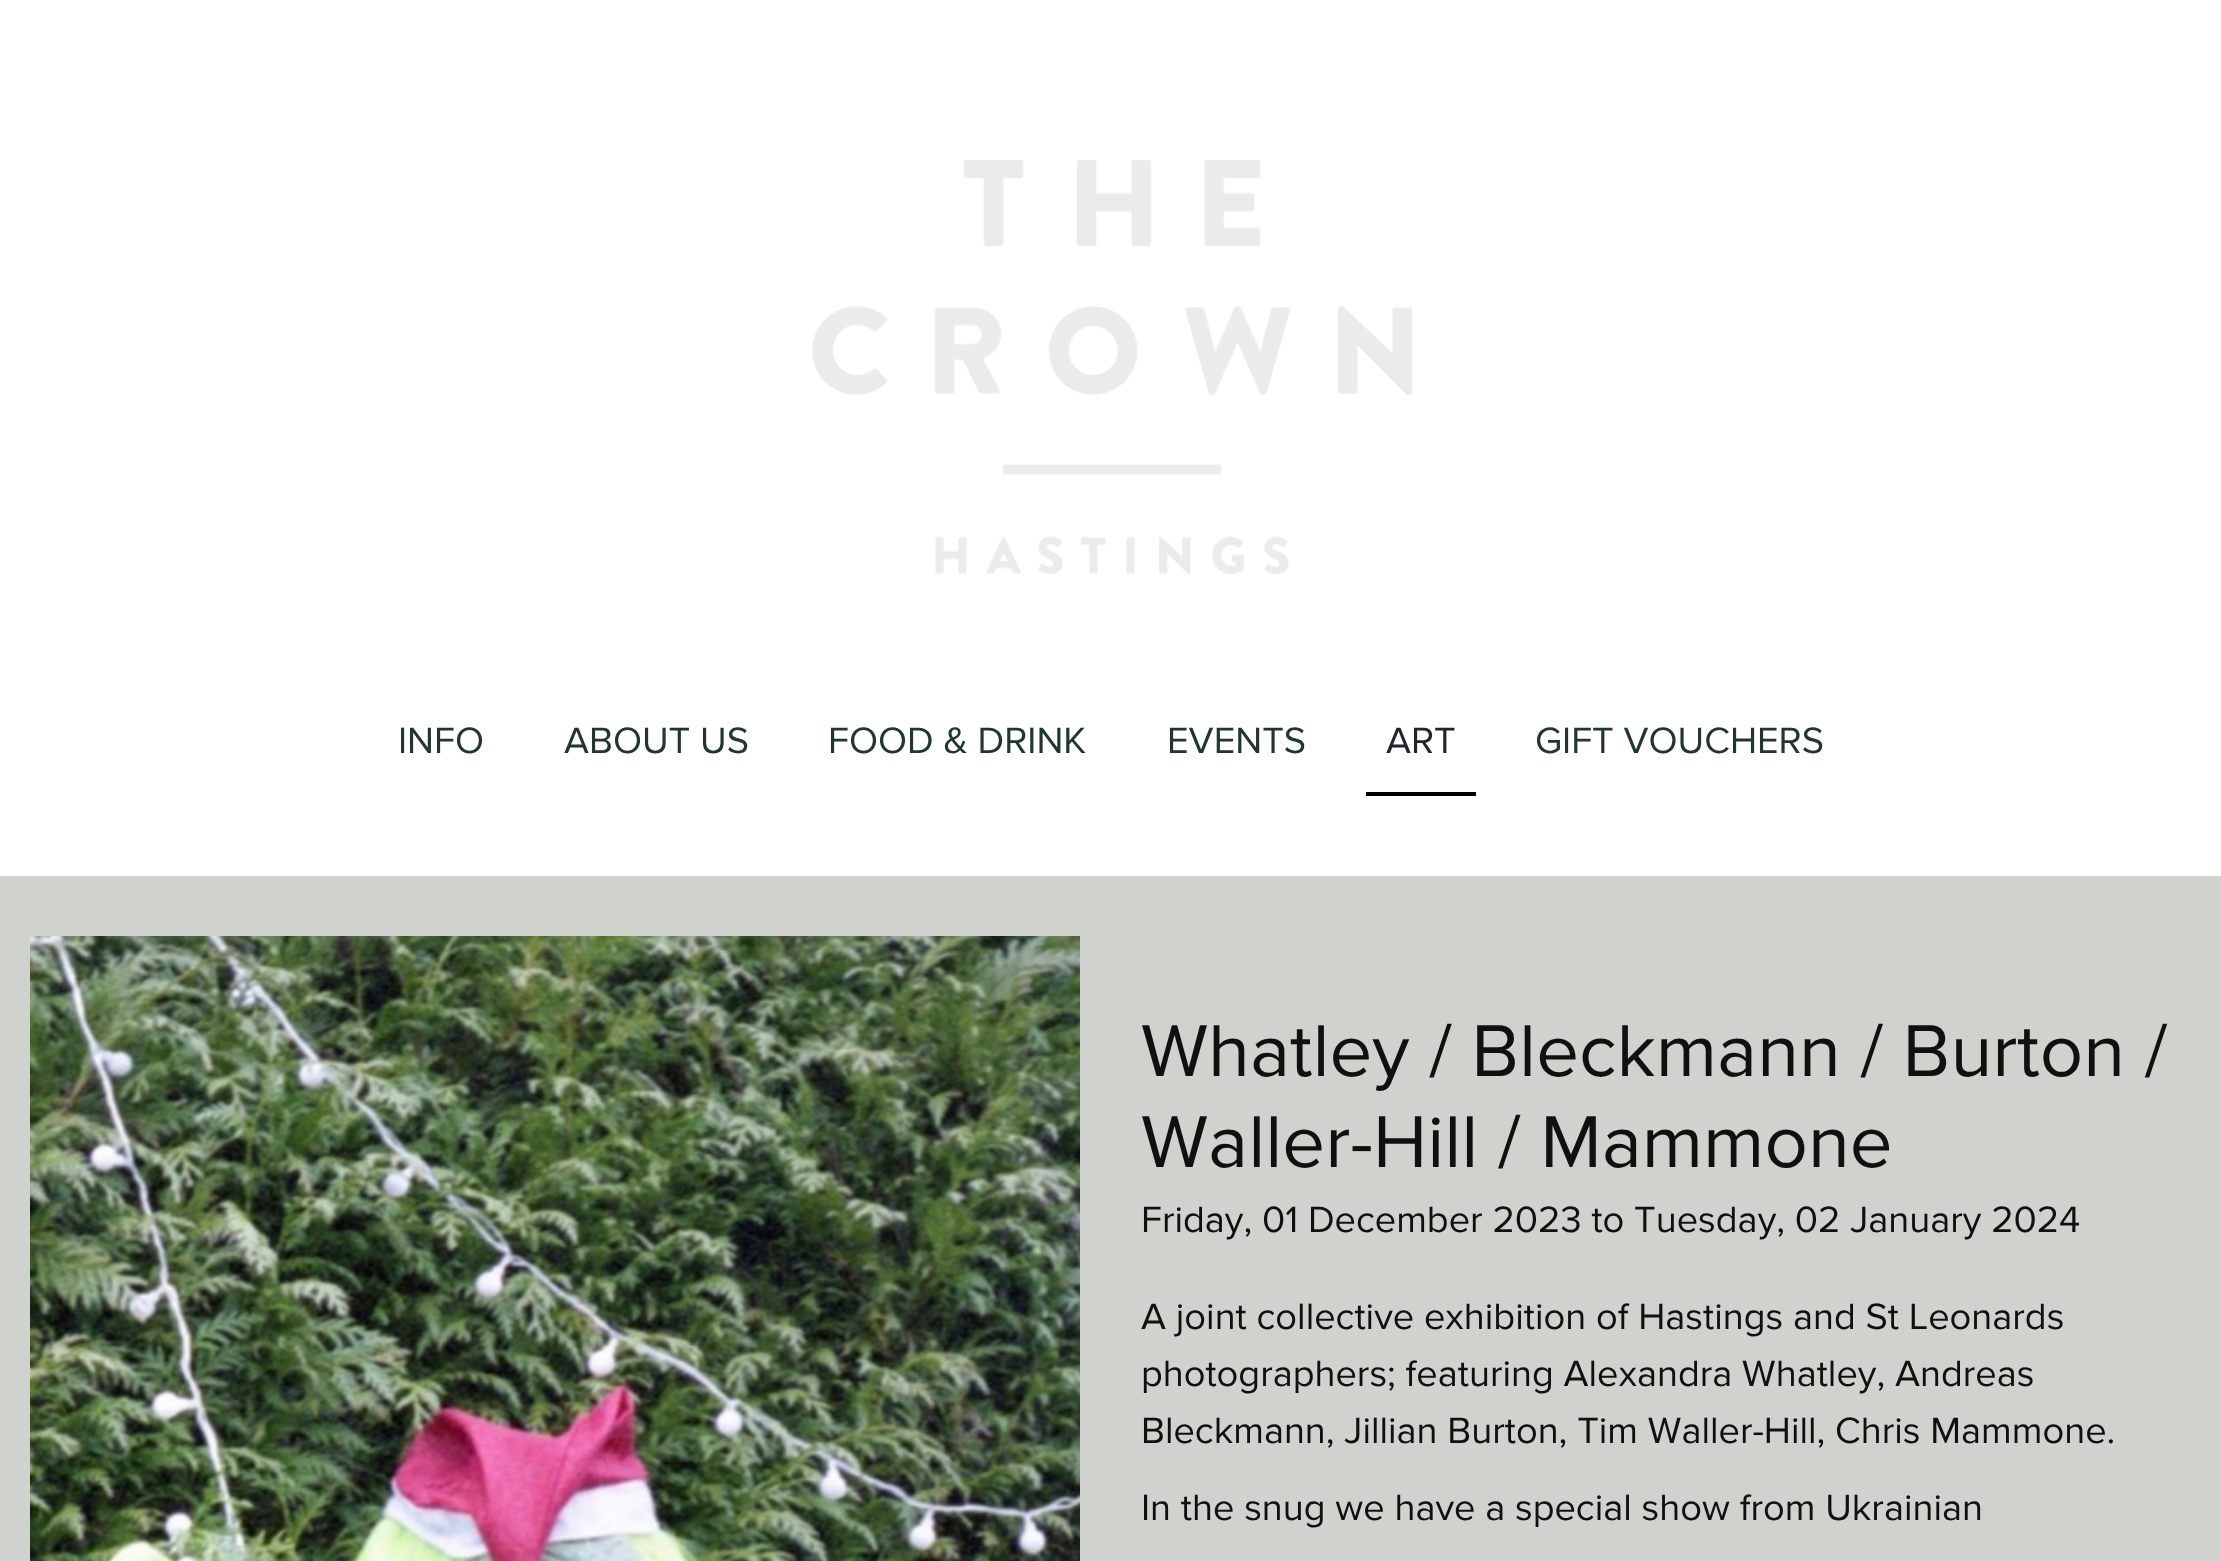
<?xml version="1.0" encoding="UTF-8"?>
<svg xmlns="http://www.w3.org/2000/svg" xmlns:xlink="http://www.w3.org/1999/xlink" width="2221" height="1561">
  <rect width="100%" height="100%" fill="#ffffff" />
  <image x="812" y="160" width="600" height="414" xlink:href="image1.png" />
  <rect x="1366" y="792" width="110" height="4" fill="#000000" />
  <rect y="876" width="2221" height="685" fill="#d0d2cd" />
  <image x="30" y="936" width="1050" height="625" xlink:href="image2.png" />
  <text x="398" y="753" style="font-family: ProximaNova; font-size: 38px; fill: #21372c">INFO</text>
  <text x="564" y="753" style="font-family: ProximaNova; font-size: 38px; fill: #21372c">ABOUT US</text>
  <text x="828" y="753" style="font-family: ProximaNova; font-size: 38px; fill: #21372c">FOOD &amp; DRINK</text>
  <text x="1167" y="753" style="font-family: ProximaNova; font-size: 38px; fill: #21372c">EVENTS</text>
  <text x="1386" y="753" style="font-family: ProximaNova; font-size: 38px; fill: #212529">ART</text>
  <text x="1535" y="753" style="font-family: ProximaNova; font-size: 38px; fill: #21372c">GIFT VOUCHERS</text>
  <text x="1141" y="1076" style="font-family: ProximaNova; font-size: 76px; fill: #120e11">Whatley / Bleckmann / Burton /</text>
  <text x="1141" y="1167" style="font-family: ProximaNova; font-size: 76px; fill: #120e11">Waller-Hill / Mammone</text>
  <text x="1141" y="1232" style="font-family: ProximaNova; font-size: 38px; fill: #120e11">Friday, 01 December 2023 to Tuesday, 02 January 2024</text>
  <text x="1141" y="1329" style="font-family: ProximaNova; font-size: 38px; fill: #120e11">A joint collective exhibition of Hastings and St Leonards</text>
  <text x="1141" y="1386" style="font-family: ProximaNova; font-size: 38px; fill: #120e11">photographers; featuring Alexandra Whatley, Andreas</text>
  <text x="1141" y="1443" style="font-family: ProximaNova; font-size: 38px; fill: #120e11">Bleckmann, Jillian Burton, Tim Waller-Hill, Chris Mammone.</text>
  <text x="1141" y="1520" style="font-family: ProximaNova; font-size: 38px; fill: #120e11">In the snug we have a special show from Ukrainian</text>
</svg>
